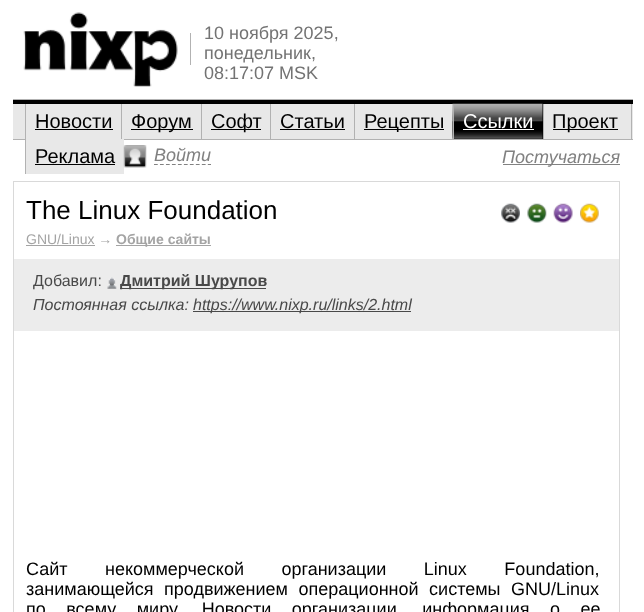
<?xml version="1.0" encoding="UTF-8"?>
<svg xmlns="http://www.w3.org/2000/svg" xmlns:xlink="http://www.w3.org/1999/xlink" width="644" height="612">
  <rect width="100%" height="100%" fill="#ffffff" />
  <rect x="13" y="99" width="620" height="1" fill="#b2b2b2" />
  <image x="23" y="12" width="155" height="75" xlink:href="image1.png" />
  <rect x="190" y="33" width="1" height="32" fill="#b2b2b2" />
  <rect x="13" y="104" width="620" height="35" fill="#e8e8e8" />
  <rect x="13" y="100" width="620" height="4" fill="#000000" />
  <rect x="13" y="139" width="620" height="1" fill="#b2b2b2" />
  <rect x="631" y="104" width="1" height="35" fill="#b2b2b2" />
  <rect x="25" y="104" width="1" height="70" fill="#b2b2b2" />
  <rect x="35" y="129" width="78" height="1" fill="#000000" />
  <rect x="121" y="104" width="1" height="35" fill="#b2b2b2" />
  <rect x="131" y="129" width="62" height="1" fill="#000000" />
  <rect x="201" y="104" width="1" height="35" fill="#b2b2b2" />
  <rect x="211" y="129" width="50" height="1" fill="#000000" />
  <rect x="270" y="104" width="1" height="35" fill="#b2b2b2" />
  <rect x="280" y="129" width="65" height="1" fill="#000000" />
  <rect x="354" y="104" width="1" height="35" fill="#b2b2b2" />
  <rect x="364" y="129" width="80" height="1" fill="#000000" />
  <rect x="454" y="104" width="89" height="35" fill="#000000" />
  <image x="452" y="103" width="91" height="36" xlink:href="image2.png" />
  <rect x="453" y="104" width="1" height="35" fill="#b2b2b2" />
  <rect x="463" y="129" width="71" height="1" fill="#ffffff" />
  <rect x="543" y="104" width="1" height="35" fill="#b2b2b2" />
  <rect x="553" y="129" width="65" height="1" fill="#000000" />
  <rect x="26" y="139" width="98" height="35" fill="#e8e8e8" />
  <rect x="35" y="164" width="80" height="1" fill="#000000" />
  <image x="123" y="145" width="24" height="23" xlink:href="image3.png" />
  <path d="M 154 164.5 h 57" fill="none" stroke="#818181" stroke-width="1.2" stroke-dasharray="3.75 2.23" />
  <rect x="503" y="164" width="117" height="1" fill="#818181" />
  <rect x="13.5" y="181.5" width="606" height="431" fill="none" stroke="#d9d9d9" />
  <image x="501" y="203" width="19" height="20" xlink:href="image4.png" />
  <image x="527" y="203" width="20" height="20" xlink:href="image5.png" />
  <image x="553" y="203" width="20" height="20" xlink:href="image6.png" />
  <image x="580" y="203" width="19" height="20" xlink:href="image7.png" />
  <rect x="26" y="245" width="69" height="1" fill="#a4a4a4" />
  <rect x="116" y="245" width="95" height="1" fill="#a4a4a4" />
  <rect x="14" y="259" width="605" height="72" fill="#ececec" />
  <image x="107" y="277" width="10" height="12" xlink:href="image8.png" />
  <rect x="120" y="288" width="146" height="1" fill="#494949" />
  <rect x="193" y="311" width="218" height="1" fill="#494949" />
  <text x="204" y="39" style="font-family: Liberation Sans; font-size: 18px; fill: #737373">10 ноября 2025,</text>
  <text x="204" y="59" style="font-family: Liberation Sans; font-size: 18px; fill: #737373">понедельник,</text>
  <text x="204" y="79" style="font-family: Liberation Sans; font-size: 18px; fill: #737373">08:17:07 MSK</text>
  <text x="35" y="128" style="font-family: Liberation Sans; font-size: 20px; fill: #000000">Новости</text>
  <text x="131" y="128" style="font-family: Liberation Sans; font-size: 20px; fill: #000000">Форум</text>
  <text x="211" y="128" style="font-family: Liberation Sans; font-size: 20px; fill: #000000">Софт</text>
  <text x="280" y="128" style="font-family: Liberation Sans; font-size: 20px; fill: #000000">Статьи</text>
  <text x="364" y="128" style="font-family: Liberation Sans; font-size: 20px; fill: #000000">Рецепты</text>
  <text x="463" y="128" style="font-family: Liberation Sans; font-size: 20px; fill: #ffffff">Ссылки</text>
  <text x="552" y="128" style="font-family: Liberation Sans; font-size: 20px; fill: #000000">Проект</text>
  <text x="35" y="163" style="font-family: Liberation Sans; font-size: 20px; fill: #000000">Реклама</text>
  <text x="154" y="161" style="font-family: Liberation Sans; font-size: 18px; font-style: italic; fill: #818181">Войти</text>
  <text x="502" y="163" style="font-family: Liberation Sans; font-size: 18px; font-style: italic; fill: #818181">Постучаться</text>
  <text x="26" y="219" style="font-family: Liberation Sans; font-size: 26px; fill: #000000">The Linux Foundation</text>
  <text x="26" y="244" style="font-family: Liberation Sans; font-size: 14px; fill: #a4a4a4">GNU/Linux →</text>
  <text x="116" y="244" style="font-family: Liberation Sans; font-size: 14px; font-weight: bold; fill: #a4a4a4">Общие сайты</text>
  <text x="33" y="286" style="font-family: Liberation Sans; font-size: 16px; fill: #494949">Добавил:</text>
  <text x="120" y="286" style="font-family: Liberation Sans; font-size: 16px; font-weight: bold; fill: #494949">Дмитрий Шурупов</text>
  <text x="33" y="310" style="font-family: Liberation Sans; font-size: 16px; font-style: italic; fill: #494949">Постоянная ссылка:</text>
  <text x="193" y="310" style="font-family: Liberation Sans; font-size: 16px; font-style: italic; fill: #494949">https://www.nixp.ru/links/2.html</text>
  <text x="26" y="575" word-spacing="32.5" style="font-family: Liberation Sans; font-size: 18px; fill: #000000">Сайт некоммерческой организации Linux Foundation,</text>
  <text x="26" y="595" word-spacing="5.5" style="font-family: Liberation Sans; font-size: 18px; fill: #000000">занимающейся продвижением операционной системы GNU/Linux</text>
  <text x="26" y="615" word-spacing="15.5" style="font-family: Liberation Sans; font-size: 18px; fill: #000000">по всему миру. Новости организации, информация о ее</text>
</svg>
